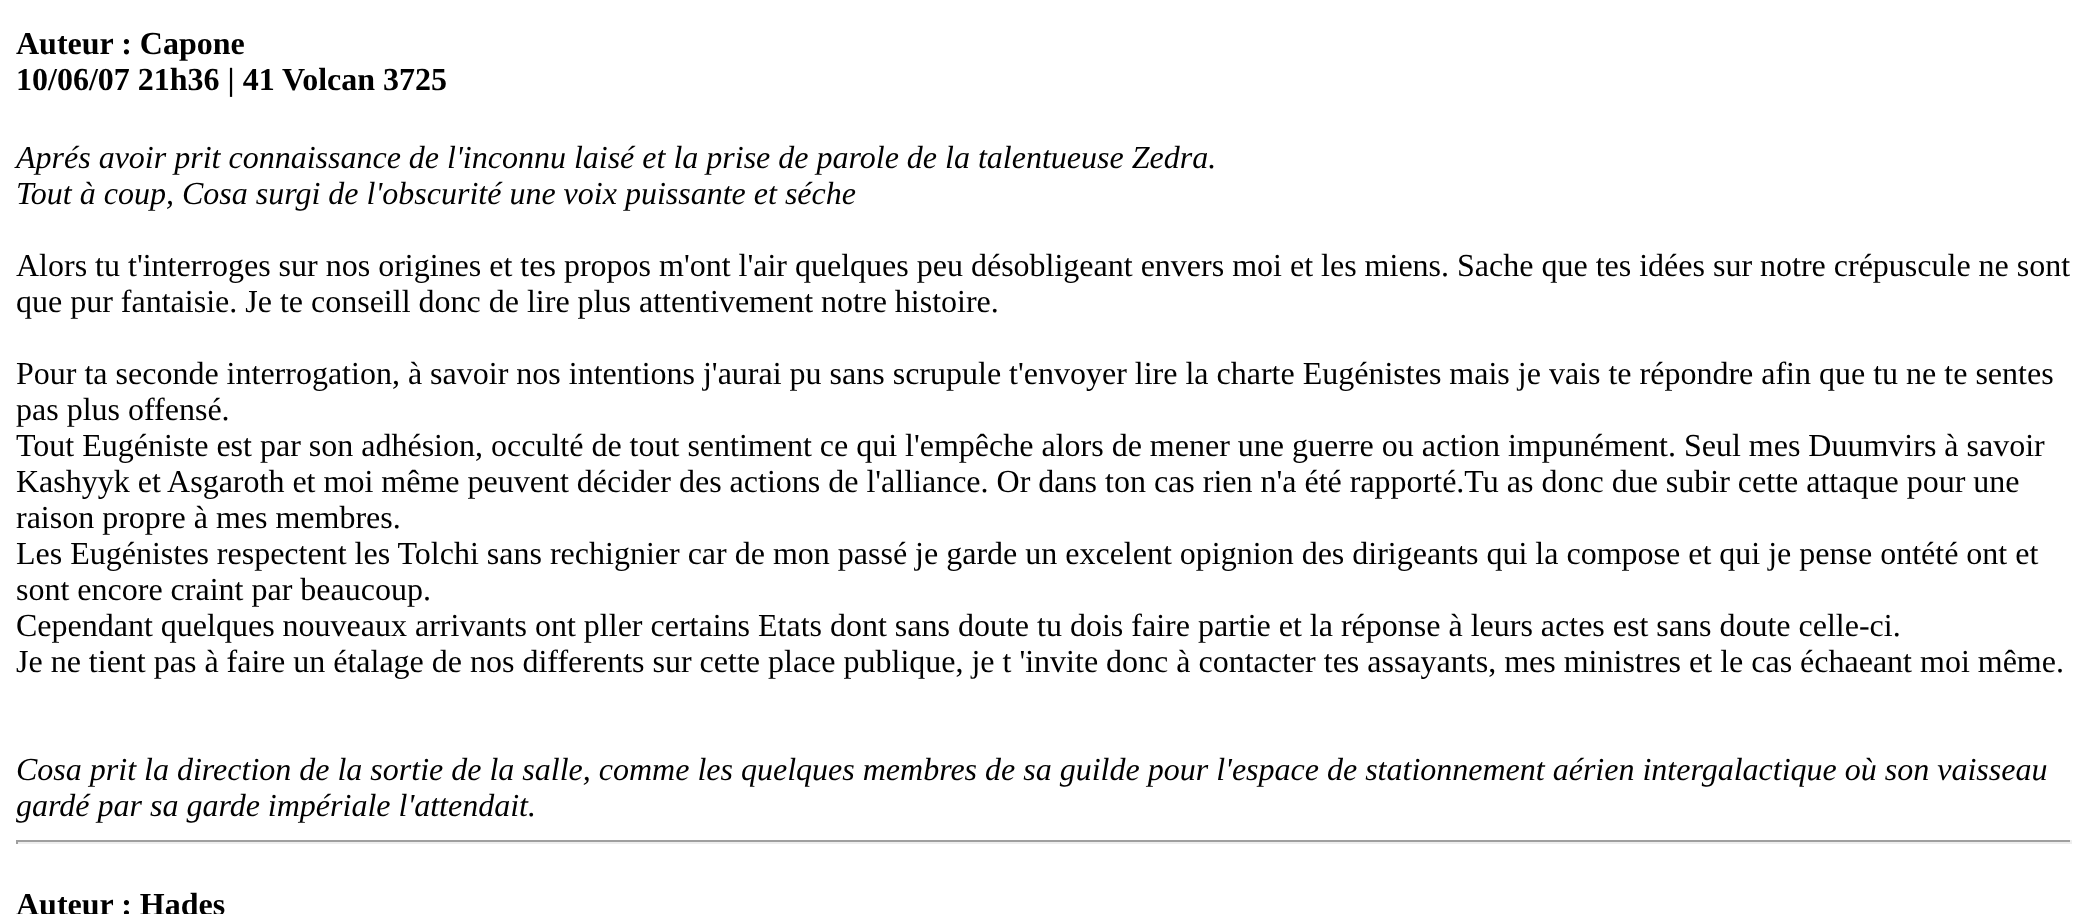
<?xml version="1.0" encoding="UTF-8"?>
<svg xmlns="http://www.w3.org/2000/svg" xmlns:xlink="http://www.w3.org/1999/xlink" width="2088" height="914">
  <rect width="100%" height="100%" fill="#ffffff" />
  <rect x="16" y="840" width="2056" height="2" fill="#9f9f9f" />
  <rect x="2070" y="840" width="2" height="4" fill="#eeeeee" />
  <rect x="16" y="842" width="2056" height="2" fill="#eeeeee" />
  <rect x="16" y="840" width="2" height="4" fill="#9f9f9f" />
  <text x="16" y="54" style="font-family: Liberation Serif; font-size: 32px; font-weight: bold; fill: #000000">Auteur : Capone</text>
  <text x="16" y="90" style="font-family: Liberation Serif; font-size: 32px; font-weight: bold; fill: #000000">10/06/07 21h36 | 41 Volcan 3725</text>
  <text x="16" y="168" style="font-family: Liberation Serif; font-size: 32px; font-style: italic; fill: #000000">Aprés avoir prit connaissance de l'inconnu laisé et la prise de parole de la talentueuse Zedra.</text>
  <text x="16" y="204" style="font-family: Liberation Serif; font-size: 32px; font-style: italic; fill: #000000">Tout à coup, Cosa surgi de l'obscurité une voix puissante et séche</text>
  <text x="16" y="276" style="font-family: Liberation Serif; font-size: 32px; fill: #000000">Alors tu t'interroges sur nos origines et tes propos m'ont l'air quelques peu désobligeant envers moi et les miens. Sache que tes idées sur notre crépuscule ne sont</text>
  <text x="16" y="312" style="font-family: Liberation Serif; font-size: 32px; fill: #000000">que pur fantaisie. Je te conseill donc de lire plus attentivement notre histoire.</text>
  <text x="16" y="384" style="font-family: Liberation Serif; font-size: 32px; fill: #000000">Pour ta seconde interrogation, à savoir nos intentions j'aurai pu sans scrupule t'envoyer lire la charte Eugénistes mais je vais te répondre afin que tu ne te sentes</text>
  <text x="16" y="420" style="font-family: Liberation Serif; font-size: 32px; fill: #000000">pas plus offensé.</text>
  <text x="16" y="456" style="font-family: Liberation Serif; font-size: 32px; fill: #000000">Tout Eugéniste est par son adhésion, occulté de tout sentiment ce qui l'empêche alors de mener une guerre ou action impunément. Seul mes Duumvirs à savoir</text>
  <text x="16" y="492" style="font-family: Liberation Serif; font-size: 32px; fill: #000000">Kashyyk et Asgaroth et moi même peuvent décider des actions de l'alliance. Or dans ton cas rien n'a été rapporté.Tu as donc due subir cette attaque pour une</text>
  <text x="16" y="528" style="font-family: Liberation Serif; font-size: 32px; fill: #000000">raison propre à mes membres.</text>
  <text x="16" y="564" style="font-family: Liberation Serif; font-size: 32px; fill: #000000">Les Eugénistes respectent les Tolchi sans rechignier car de mon passé je garde un excelent opignion des dirigeants qui la compose et qui je pense ontété ont et</text>
  <text x="16" y="600" style="font-family: Liberation Serif; font-size: 32px; fill: #000000">sont encore craint par beaucoup.</text>
  <text x="16" y="636" style="font-family: Liberation Serif; font-size: 32px; fill: #000000">Cependant quelques nouveaux arrivants ont pller certains Etats dont sans doute tu dois faire partie et la réponse à leurs actes est sans doute celle-ci.</text>
  <text x="16" y="672" style="font-family: Liberation Serif; font-size: 32px; fill: #000000">Je ne tient pas à faire un étalage de nos differents sur cette place publique, je t 'invite donc à contacter tes assayants, mes ministres et le cas échaeant moi même.</text>
  <text x="16" y="780" style="font-family: Liberation Serif; font-size: 32px; font-style: italic; fill: #000000">Cosa prit la direction de la sortie de la salle, comme les quelques membres de sa guilde pour l'espace de stationnement aérien intergalactique où son vaisseau</text>
  <text x="16" y="816" style="font-family: Liberation Serif; font-size: 32px; font-style: italic; fill: #000000">gardé par sa garde impériale l'attendait.</text>
  <text x="16" y="915" style="font-family: Liberation Serif; font-size: 32px; font-weight: bold; fill: #000000">Auteur : Hades</text>
</svg>
